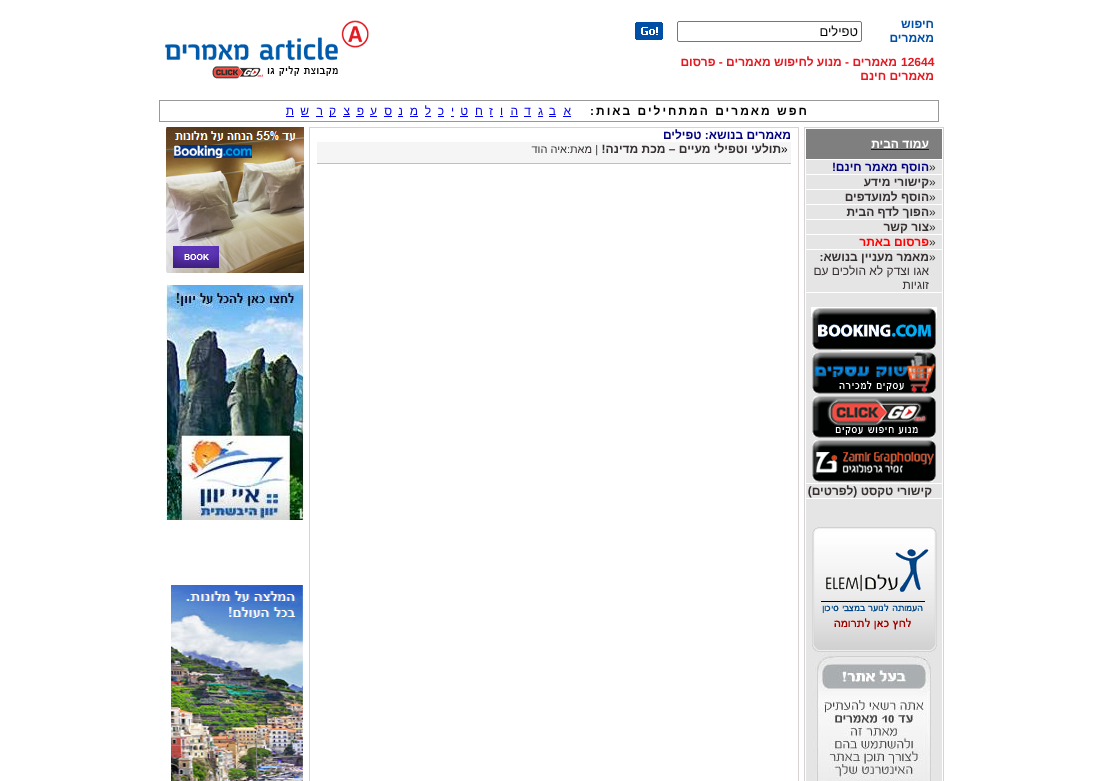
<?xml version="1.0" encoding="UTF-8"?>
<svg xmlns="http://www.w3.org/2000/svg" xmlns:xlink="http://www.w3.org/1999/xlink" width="1098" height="781">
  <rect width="100%" height="100%" fill="#ffffff" />
  <image x="164" y="20" width="205" height="59" xlink:href="image1.png" />
  <rect x="677.5" y="21.5" width="184" height="20" rx="1.5" fill="none" stroke="#767676" />
  <image x="635" y="22" width="28" height="18" xlink:href="image2.png" />
  <rect x="159.5" y="100.5" width="779" height="21" fill="none" stroke="#999999" />
  <rect x="563" y="116" width="8" height="1" fill="#0000ee" />
  <rect x="549" y="116" width="7" height="1" fill="#0000ee" />
  <rect x="538" y="116" width="5" height="1" fill="#0000ee" />
  <rect x="524" y="116" width="7" height="1" fill="#0000ee" />
  <rect x="510" y="116" width="8" height="1" fill="#0000ee" />
  <rect x="500" y="116" width="3" height="1" fill="#0000ee" />
  <rect x="490" y="116" width="3" height="1" fill="#0000ee" />
  <rect x="475" y="116" width="8" height="1" fill="#0000ee" />
  <rect x="460" y="116" width="8" height="1" fill="#0000ee" />
  <rect x="451" y="116" width="3" height="1" fill="#0000ee" />
  <rect x="438" y="116" width="6" height="1" fill="#0000ee" />
  <rect x="425" y="116" width="6" height="1" fill="#0000ee" />
  <rect x="410" y="116" width="8" height="1" fill="#0000ee" />
  <rect x="398" y="116" width="5" height="1" fill="#0000ee" />
  <rect x="384" y="116" width="8" height="1" fill="#0000ee" />
  <rect x="370" y="116" width="7" height="1" fill="#0000ee" />
  <rect x="356" y="116" width="8" height="1" fill="#0000ee" />
  <rect x="343" y="116" width="7" height="1" fill="#0000ee" />
  <rect x="329" y="116" width="7" height="1" fill="#0000ee" />
  <rect x="316" y="116" width="7" height="1" fill="#0000ee" />
  <rect x="301" y="116" width="8" height="1" fill="#0000ee" />
  <rect x="286" y="116" width="8" height="1" fill="#0000ee" />
  <rect x="804.5" y="127.5" width="139" height="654" fill="none" stroke="#d8d3d3" />
  <rect x="806" y="129" width="136" height="30" fill="#7f7f7f" />
  <rect x="871" y="149" width="58" height="1" fill="#0000ee" />
  <rect x="806" y="160" width="136" height="14" fill="#e5e5e5" />
  <rect x="806" y="175" width="136" height="14" fill="#e5e5e5" />
  <rect x="806" y="190" width="136" height="14" fill="#e5e5e5" />
  <rect x="806" y="205" width="136" height="14" fill="#e5e5e5" />
  <rect x="806" y="220" width="136" height="14" fill="#e5e5e5" />
  <rect x="806" y="235" width="136" height="14" fill="#e5e5e5" />
  <rect x="806" y="250" width="136" height="42" fill="#e5e5e5" />
  <rect x="806" y="293" width="136" height="190" fill="#e5e5e5" />
  <image x="811" y="307" width="126" height="44" xlink:href="image3.png" />
  <image x="812" y="352" width="124" height="42" xlink:href="image4.png" />
  <image x="812" y="396" width="124" height="42" xlink:href="image5.png" />
  <image x="812" y="440" width="124" height="42" xlink:href="image6.png" />
  <rect x="806" y="484" width="136" height="14" fill="#e5e5e5" />
  <rect x="806" y="499" width="136" height="282" fill="#e5e5e5" />
  <image x="812" y="527" width="125" height="125" xlink:href="image7.png" />
  <image x="813" y="652" width="119" height="129" xlink:href="image8.png" />
  <rect x="309.5" y="127.5" width="489" height="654" fill="none" stroke="#d8d3d3" />
  <rect x="317" y="142" width="474" height="21" fill="#f5f5f5" />
  <rect x="317" y="163" width="474" height="1" fill="#c0c0c0" />
  <image x="166" y="127" width="138" height="146" xlink:href="image9.png" />
  <image x="166" y="285" width="138" height="235" xlink:href="image10.png" />
  <image x="171" y="585" width="132" height="196" xlink:href="image11.png" />
  <text x="934" y="28" style="font-family: Liberation Sans; font-size: 12px; font-weight: bold; direction: rtl; fill: #004fa6">חיפוש</text>
  <text x="934" y="42" style="font-family: Liberation Sans; font-size: 12px; font-weight: bold; direction: rtl; fill: #004fa6">מאמרים</text>
  <text x="858" y="36" style="font-family: Liberation Sans; font-size: 13px; direction: rtl; fill: #000000">טפילים</text>
  <text x="901" y="66" style="font-family: Liberation Sans; font-size: 12px; font-weight: bold; fill: #e21a22">12644</text>
  <text x="897" y="66" style="font-family: Liberation Sans; font-size: 12px; font-weight: bold; direction: rtl; fill: #e21a22">מאמרים - מנוע לחיפוש מאמרים - פרסום</text>
  <text x="934" y="80" style="font-family: Liberation Sans; font-size: 12px; font-weight: bold; direction: rtl; fill: #e21a22">מאמרים חינם</text>
  <text x="809" y="115" style="font-family: Liberation Sans; font-size: 12px; font-weight: bold; letter-spacing: 2px; direction: rtl; fill: #000000">חפש מאמרים המתחילים באות:</text>
  <text x="571" y="115" style="font-family: Liberation Sans; font-size: 12px; direction: rtl; fill: #0000ee">א</text>
  <text x="556" y="115" style="font-family: Liberation Sans; font-size: 12px; direction: rtl; fill: #0000ee">ב</text>
  <text x="543" y="115" style="font-family: Liberation Sans; font-size: 12px; direction: rtl; fill: #0000ee">ג</text>
  <text x="531" y="115" style="font-family: Liberation Sans; font-size: 12px; direction: rtl; fill: #0000ee">ד</text>
  <text x="518" y="115" style="font-family: Liberation Sans; font-size: 12px; direction: rtl; fill: #0000ee">ה</text>
  <text x="503" y="115" style="font-family: Liberation Sans; font-size: 12px; direction: rtl; fill: #0000ee">ו</text>
  <text x="493" y="115" style="font-family: Liberation Sans; font-size: 12px; direction: rtl; fill: #0000ee">ז</text>
  <text x="483" y="115" style="font-family: Liberation Sans; font-size: 12px; direction: rtl; fill: #0000ee">ח</text>
  <text x="468" y="115" style="font-family: Liberation Sans; font-size: 12px; direction: rtl; fill: #0000ee">ט</text>
  <text x="454" y="115" style="font-family: Liberation Sans; font-size: 12px; direction: rtl; fill: #0000ee">י</text>
  <text x="444" y="115" style="font-family: Liberation Sans; font-size: 12px; direction: rtl; fill: #0000ee">כ</text>
  <text x="431" y="115" style="font-family: Liberation Sans; font-size: 12px; direction: rtl; fill: #0000ee">ל</text>
  <text x="418" y="115" style="font-family: Liberation Sans; font-size: 12px; direction: rtl; fill: #0000ee">מ</text>
  <text x="403" y="115" style="font-family: Liberation Sans; font-size: 12px; direction: rtl; fill: #0000ee">נ</text>
  <text x="392" y="115" style="font-family: Liberation Sans; font-size: 12px; direction: rtl; fill: #0000ee">ס</text>
  <text x="377" y="115" style="font-family: Liberation Sans; font-size: 12px; direction: rtl; fill: #0000ee">ע</text>
  <text x="364" y="115" style="font-family: Liberation Sans; font-size: 12px; direction: rtl; fill: #0000ee">פ</text>
  <text x="350" y="115" style="font-family: Liberation Sans; font-size: 12px; direction: rtl; fill: #0000ee">צ</text>
  <text x="336" y="115" style="font-family: Liberation Sans; font-size: 12px; direction: rtl; fill: #0000ee">ק</text>
  <text x="323" y="115" style="font-family: Liberation Sans; font-size: 12px; direction: rtl; fill: #0000ee">ר</text>
  <text x="309" y="115" style="font-family: Liberation Sans; font-size: 12px; direction: rtl; fill: #0000ee">ש</text>
  <text x="294" y="115" style="font-family: Liberation Sans; font-size: 12px; direction: rtl; fill: #0000ee">ת</text>
  <text x="929" y="148" style="font-family: Liberation Sans; font-size: 12px; font-weight: bold; direction: rtl; fill: #ffffff">עמוד הבית</text>
  <text x="929" y="171" style="font-family: Liberation Sans; font-size: 12px; fill: #363030">»</text>
  <text x="929" y="171" style="font-family: Liberation Sans; font-size: 12px; font-weight: bold; direction: rtl; fill: #000080">הוסף מאמר חינם!</text>
  <text x="929" y="186" style="font-family: Liberation Sans; font-size: 12px; fill: #363030">»</text>
  <text x="929" y="186" style="font-family: Liberation Sans; font-size: 12px; font-weight: bold; direction: rtl; fill: #363030">קישורי מידע</text>
  <text x="929" y="201" style="font-family: Liberation Sans; font-size: 12px; fill: #363030">»</text>
  <text x="929" y="201" style="font-family: Liberation Sans; font-size: 12px; font-weight: bold; direction: rtl; fill: #363030">הוסף למועדפים</text>
  <text x="929" y="216" style="font-family: Liberation Sans; font-size: 12px; fill: #363030">»</text>
  <text x="929" y="216" style="font-family: Liberation Sans; font-size: 12px; font-weight: bold; direction: rtl; fill: #363030">הפוך לדף הבית</text>
  <text x="929" y="231" style="font-family: Liberation Sans; font-size: 12px; fill: #363030">»</text>
  <text x="929" y="231" style="font-family: Liberation Sans; font-size: 12px; font-weight: bold; direction: rtl; fill: #363030">צור קשר</text>
  <text x="929" y="246" style="font-family: Liberation Sans; font-size: 12px; fill: #363030">»</text>
  <text x="929" y="246" style="font-family: Liberation Sans; font-size: 12px; font-weight: bold; direction: rtl; fill: #ff0000">פרסום באתר</text>
  <text x="929" y="261" style="font-family: Liberation Sans; font-size: 12px; fill: #363030">»</text>
  <text x="929" y="261" style="font-family: Liberation Sans; font-size: 12px; font-weight: bold; direction: rtl; fill: #363030">מאמר מעניין בנושא:</text>
  <text x="929" y="275" style="font-family: Liberation Sans; font-size: 12px; direction: rtl; fill: #363030">אגו וצדק לא הולכים עם</text>
  <text x="929" y="289" style="font-family: Liberation Sans; font-size: 12px; direction: rtl; fill: #363030">זוגיות</text>
  <text x="932" y="495" style="font-family: Liberation Sans; font-size: 12px; font-weight: bold; direction: rtl; fill: #363030">קישורי טקסט (לפרטים)</text>
  <text x="791" y="139" style="font-family: Liberation Sans; font-size: 12px; font-weight: bold; direction: rtl; fill: #000080">מאמרים בנושא: טפילים</text>
  <text x="781" y="153" style="font-family: Liberation Sans; font-size: 12px; fill: #000000">»</text>
  <text x="781" y="153" style="font-family: Liberation Sans; font-size: 12px; font-weight: bold; direction: rtl; fill: #363030">תולעי וטפילי מעיים – מכת מדינה!</text>
  <text x="598" y="153" style="font-family: Liberation Sans; font-size: 11px; direction: rtl; fill: #363030">| מאת:איה הוד</text>
</svg>
